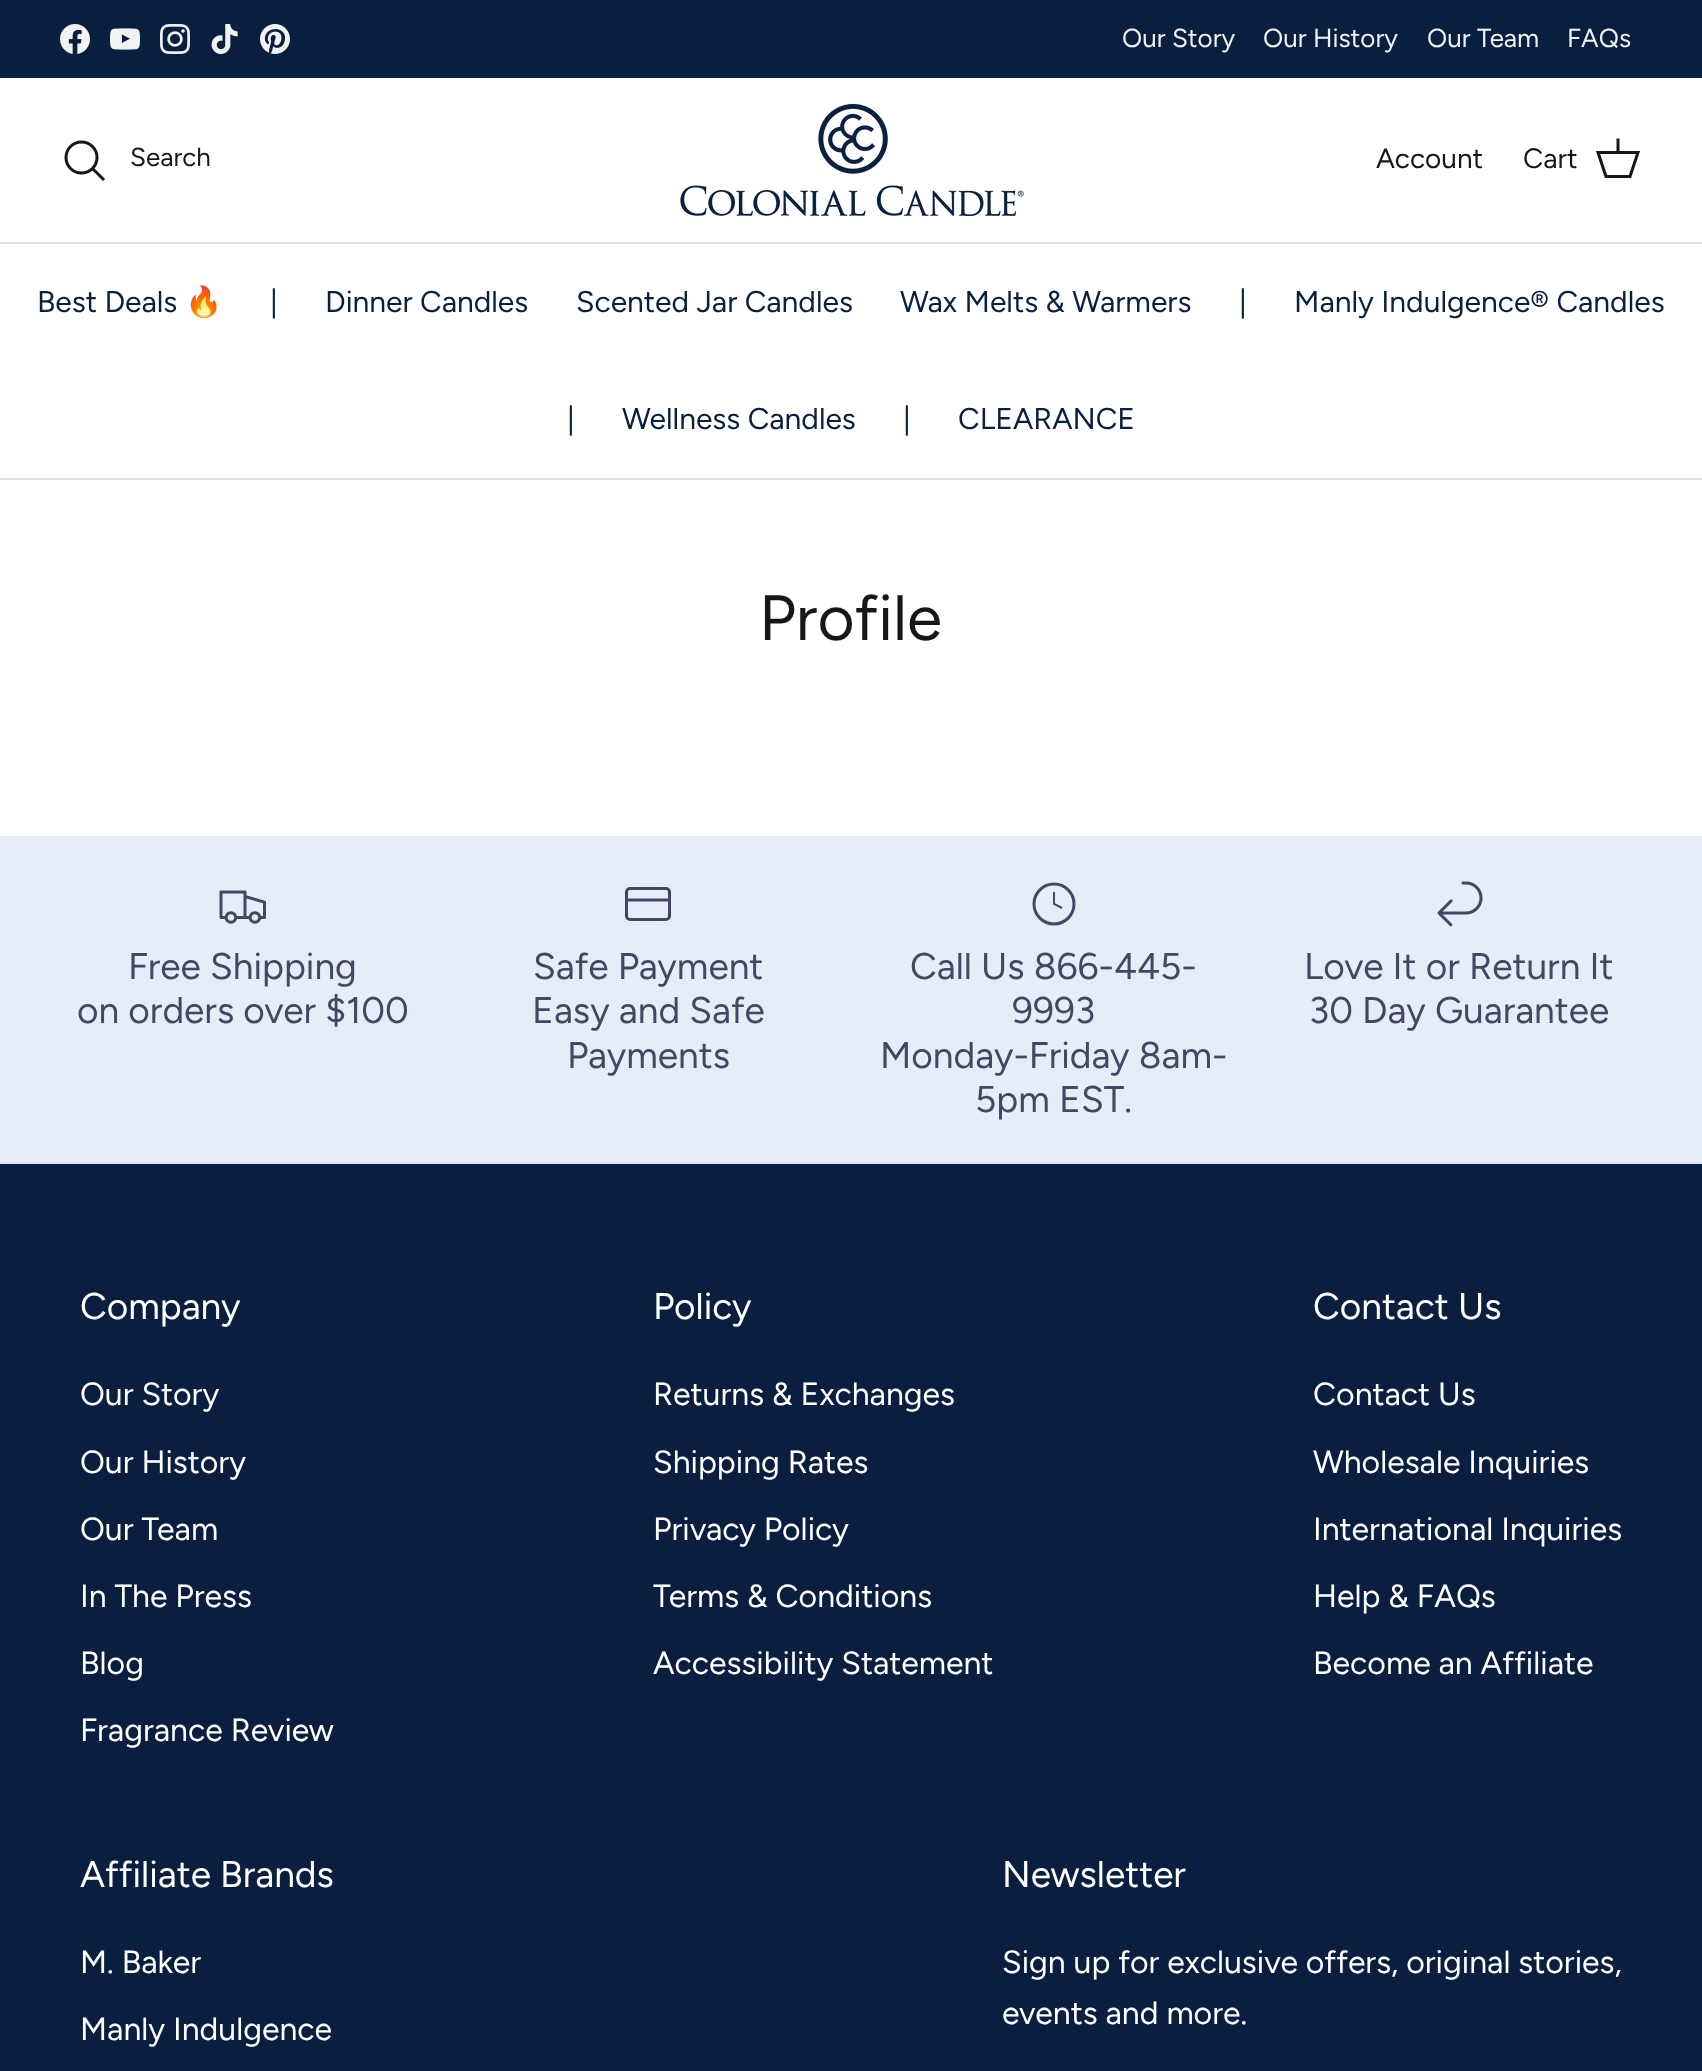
<?xml version="1.0" encoding="UTF-8"?>
<svg xmlns="http://www.w3.org/2000/svg" xmlns:xlink="http://www.w3.org/1999/xlink" width="1702" height="2071">
  <rect width="100%" height="100%" fill="#ffffff" />
  <rect width="1702" height="78" fill="#091f40" />
  <image x="60" y="24" width="30" height="30" xlink:href="image1.png" />
  <image x="110" y="28" width="30" height="22" xlink:href="image2.png" />
  <image x="160" y="24" width="30" height="30" xlink:href="image3.png" />
  <image x="211" y="24" width="27" height="30" xlink:href="image4.png" />
  <image x="260" y="24" width="30" height="30" xlink:href="image5.png" />
  <rect y="242" width="1702" height="2" fill="#dfe3e8" />
  <circle cx="81.5" cy="157.5" r="15.5" fill="none" stroke="#171717" stroke-width="3" />
  <path d="M 94 170 l 9 9" fill="none" stroke="#171717" stroke-width="3" stroke-linecap="square" />
  <image x="680" y="103" width="344" height="114" xlink:href="image6.png" />
  <path d="M 1598 152.5 h 40 l -8 24 h -24 z" fill="none" stroke="#171717" stroke-width="3" />
  <path d="M 1618 152 v -12" fill="none" stroke="#171717" stroke-width="3" stroke-linecap="square" />
  <rect y="478" width="1702" height="2" fill="#dfe3e8" />
  <rect y="836" width="1702" height="326" fill="#e6edf9" />
  <image x="219" y="890" width="47" height="34" xlink:href="image7.png" />
  <rect x="626.5" y="888.5" width="43" height="31" rx="3.5" fill="none" stroke="#454564" stroke-width="3" />
  <path d="M 627 900 h 42.5" fill="none" stroke="#454564" stroke-width="3" />
  <circle cx="1054" cy="904" r="20" fill="none" stroke="#454564" stroke-width="3" />
  <path d="M 1054 892 v 12 l 8 4" fill="none" stroke="#454564" stroke-width="2" />
  <image x="1437" y="881" width="46" height="46" xlink:href="image8.png" />
  <rect y="1164" width="1702" height="907" fill="#0a1f40" />
  <rect y="1162" width="1702" height="2" fill="#dfe3e8" />
  <text x="1122" y="47" style="font-family: Figtree; font-size: 26px; fill: #f1f2f2">Our Story</text>
  <text x="1263" y="47" style="font-family: Figtree; font-size: 26px; fill: #f1f2f2">Our History</text>
  <text x="1427" y="47" style="font-family: Figtree; font-size: 26px; fill: #f1f2f2">Our Team</text>
  <text x="1567" y="47" style="font-family: Figtree; font-size: 26px; fill: #f1f2f2">FAQs</text>
  <text x="130" y="166" style="font-family: Figtree; font-size: 26px; fill: #171717">Search</text>
  <text x="1376" y="168" style="font-family: Figtree; font-size: 28px; fill: #171717">Account</text>
  <text x="1523" y="168" style="font-family: Figtree; font-size: 28px; fill: #171717">Cart</text>
  <text x="37" y="312" style="font-family: Figtree; font-size: 30px; fill: #091f40">Best Deals</text>
  <text x="185" y="312" style="font-family: Noto Color Emoji; font-size: 30px; fill: #091f40">🔥</text>
  <text x="270" y="312" style="font-family: Figtree; font-size: 30px; fill: #091f40">|</text>
  <text x="325" y="312" style="font-family: Figtree; font-size: 30px; fill: #091f40">Dinner Candles</text>
  <text x="576" y="312" style="font-family: Figtree; font-size: 30px; fill: #091f40">Scented Jar Candles</text>
  <text x="900" y="312" style="font-family: Figtree; font-size: 30px; fill: #091f40">Wax Melts &amp; Warmers</text>
  <text x="1239" y="312" style="font-family: Figtree; font-size: 30px; fill: #091f40">|</text>
  <text x="1294" y="312" style="font-family: Figtree; font-size: 30px; fill: #091f40">Manly Indulgence® Candles</text>
  <text x="567" y="429" style="font-family: Figtree; font-size: 30px; fill: #091f40">|</text>
  <text x="622" y="429" style="font-family: Figtree; font-size: 30px; fill: #091f40">Wellness Candles</text>
  <text x="903" y="429" style="font-family: Figtree; font-size: 30px; fill: #091f40">|</text>
  <text x="958" y="429" style="font-family: Figtree; font-size: 30px; fill: #091f40">CLEARANCE</text>
  <text x="759" y="640" style="font-family: Figtree; font-size: 64px; fill: #171717">Profile</text>
  <text x="128" y="979" style="font-family: Figtree; font-size: 37.1px; fill: #454564">Free Shipping</text>
  <text x="77" y="1023" style="font-family: Figtree; font-size: 37.1px; fill: #454564">on orders over $100</text>
  <text x="533" y="979" style="font-family: Figtree; font-size: 37.1px; fill: #454564">Safe Payment</text>
  <text x="532" y="1023" style="font-family: Figtree; font-size: 37.1px; fill: #454564">Easy and Safe</text>
  <text x="567" y="1068" style="font-family: Figtree; font-size: 37.1px; fill: #454564">Payments</text>
  <text x="910" y="979" style="font-family: Figtree; font-size: 37.1px; fill: #454564">Call Us 866-445-</text>
  <text x="1012" y="1023" style="font-family: Figtree; font-size: 37.1px; fill: #454564">9993</text>
  <text x="880" y="1068" style="font-family: Figtree; font-size: 37.1px; fill: #454564">Monday-Friday 8am-</text>
  <text x="975" y="1112" style="font-family: Figtree; font-size: 37.1px; fill: #454564">5pm EST.</text>
  <text x="1304" y="979" style="font-family: Figtree; font-size: 37.1px; fill: #454564">Love It or Return It</text>
  <text x="1309" y="1023" style="font-family: Figtree; font-size: 37.1px; fill: #454564">30 Day Guarantee</text>
  <text x="80" y="1319" style="font-family: Figtree; font-size: 37.1px; fill: #ffffff">Company</text>
  <text x="80" y="1405" style="font-family: Figtree; font-size: 32px; fill: #ffffff">Our Story</text>
  <text x="80" y="1473" style="font-family: Figtree; font-size: 32px; fill: #ffffff">Our History</text>
  <text x="80" y="1540" style="font-family: Figtree; font-size: 32px; fill: #ffffff">Our Team</text>
  <text x="80" y="1607" style="font-family: Figtree; font-size: 32px; fill: #ffffff">In The Press</text>
  <text x="80" y="1674" style="font-family: Figtree; font-size: 32px; fill: #ffffff">Blog</text>
  <text x="80" y="1741" style="font-family: Figtree; font-size: 32px; fill: #ffffff">Fragrance Review</text>
  <text x="653" y="1319" style="font-family: Figtree; font-size: 37.1px; fill: #ffffff">Policy</text>
  <text x="653" y="1405" style="font-family: Figtree; font-size: 32px; fill: #ffffff">Returns &amp; Exchanges</text>
  <text x="653" y="1473" style="font-family: Figtree; font-size: 32px; fill: #ffffff">Shipping Rates</text>
  <text x="653" y="1540" style="font-family: Figtree; font-size: 32px; fill: #ffffff">Privacy Policy</text>
  <text x="653" y="1607" style="font-family: Figtree; font-size: 32px; fill: #ffffff">Terms &amp; Conditions</text>
  <text x="653" y="1674" style="font-family: Figtree; font-size: 32px; fill: #ffffff">Accessibility Statement</text>
  <text x="1313" y="1319" style="font-family: Figtree; font-size: 37.1px; fill: #ffffff">Contact Us</text>
  <text x="1313" y="1405" style="font-family: Figtree; font-size: 32px; fill: #ffffff">Contact Us</text>
  <text x="1313" y="1473" style="font-family: Figtree; font-size: 32px; fill: #ffffff">Wholesale Inquiries</text>
  <text x="1313" y="1540" style="font-family: Figtree; font-size: 32px; fill: #ffffff">International Inquiries</text>
  <text x="1313" y="1607" style="font-family: Figtree; font-size: 32px; fill: #ffffff">Help &amp; FAQs</text>
  <text x="1313" y="1674" style="font-family: Figtree; font-size: 32px; fill: #ffffff">Become an Affiliate</text>
  <text x="80" y="1887" style="font-family: Figtree; font-size: 37.1px; fill: #ffffff">Affiliate Brands</text>
  <text x="80" y="1973" style="font-family: Figtree; font-size: 32px; fill: #ffffff">M. Baker</text>
  <text x="80" y="2040" style="font-family: Figtree; font-size: 32px; fill: #ffffff">Manly Indulgence</text>
  <text x="1002" y="1887" style="font-family: Figtree; font-size: 37.1px; fill: #ffffff">Newsletter</text>
  <text x="1002" y="1973" style="font-family: Figtree; font-size: 32px; fill: #ffffff">Sign up for exclusive offers, original stories,</text>
  <text x="1002" y="2024" style="font-family: Figtree; font-size: 32px; fill: #ffffff">events and more.</text>
</svg>
